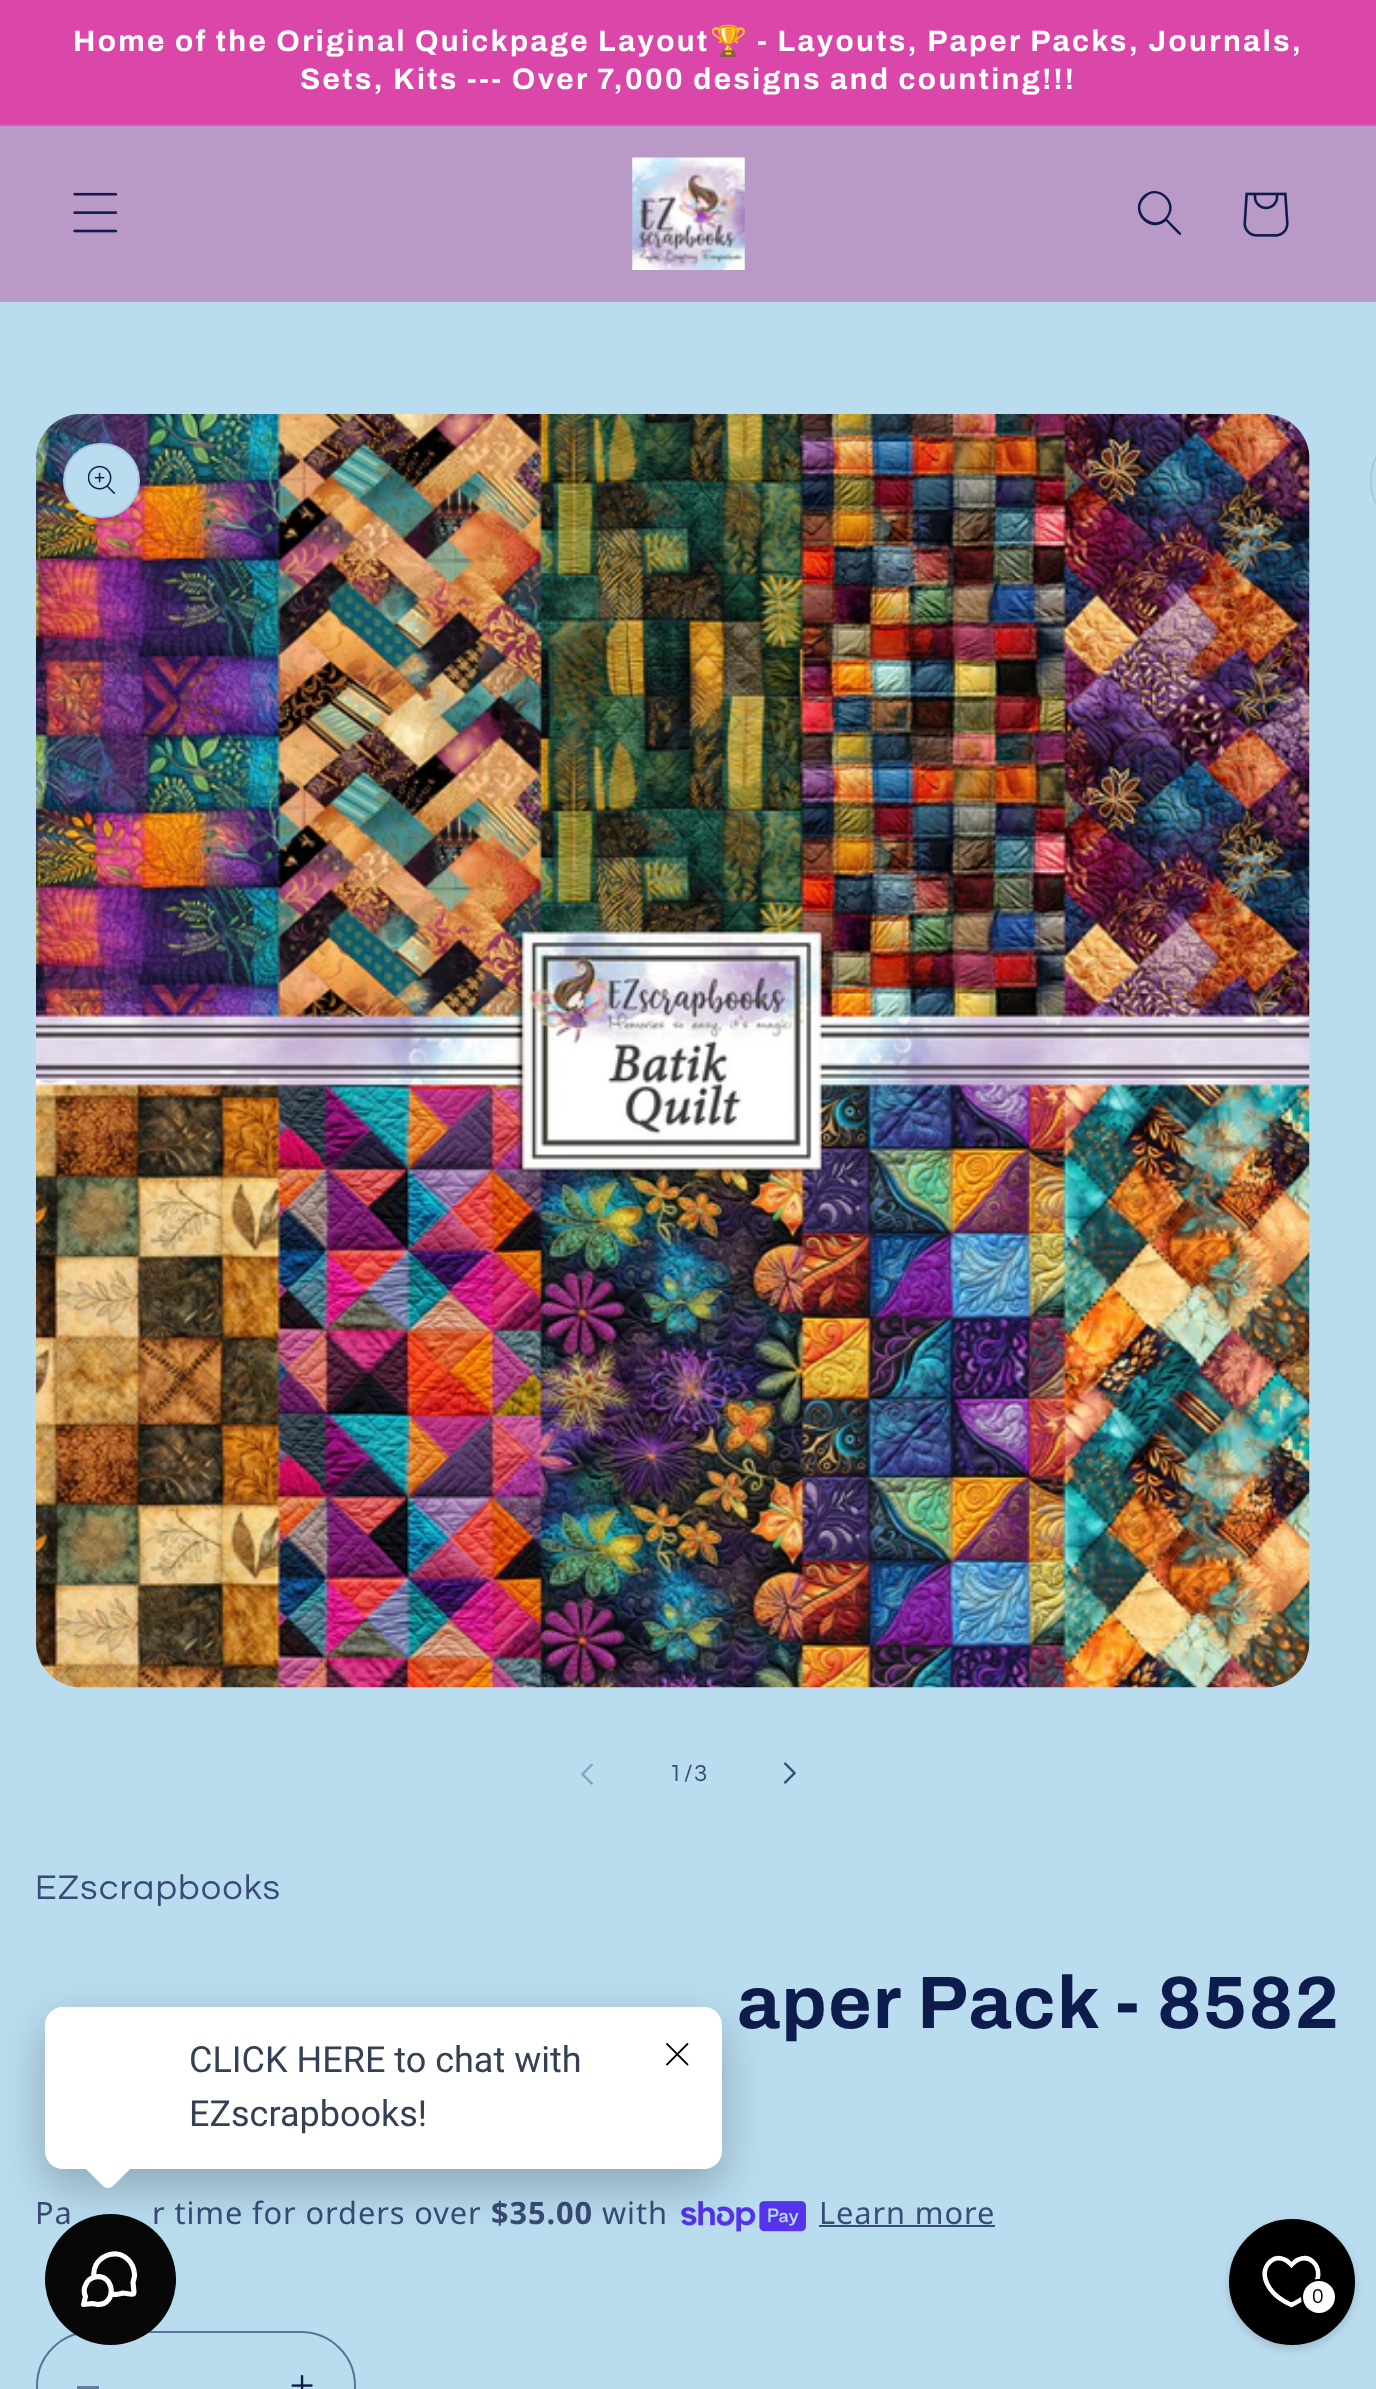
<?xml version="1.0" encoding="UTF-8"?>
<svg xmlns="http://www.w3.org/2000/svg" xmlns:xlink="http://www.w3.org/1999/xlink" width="1376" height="2389">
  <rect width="100%" height="100%" fill="#b9dcef" />
  <rect width="1376" height="124" fill="#db47a9" />
  <rect y="124" width="1376" height="2" fill="#de56b0" />
  <rect y="126" width="1376" height="176" fill="#b99ac6" />
  <image x="73" y="192" width="45" height="41" xlink:href="image1.png" />
  <image x="632" y="157" width="113" height="113" xlink:href="image2.png" />
  <path d="M 1165 218 c -13 13 -34 -7 -20 -20 c 13 -14 33 7 20 20 z m 1 3 c -17 14 -38 -10 -23 -25 c 15 -15 39 7 24 23 l 14 14 v 2 c -2 1 -13 -12 -15 -14 z" fill="#0e1b4d" fill-rule="evenodd" />
  <image x="1243" y="192" width="46" height="45" xlink:href="image3.png" />
  <image x="36" y="414" width="1274" height="1274" xlink:href="image4.png" />
  <rect x="63" y="443" width="77" height="75" rx="37.5" fill="#b9dcef" />
  <rect x="64" y="444" width="75" height="73" rx="36.5" fill="none" stroke="#0e1b4d" stroke-opacity="0.1" stroke-width="2" />
  <image x="88" y="465" width="27" height="30" xlink:href="image5.png" />
  <rect x="1371" y="444" width="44" height="73" rx="36.5" fill="none" stroke="#a8c9df" stroke-width="2" />
  <image x="581" y="1763" width="12" height="22" xlink:href="image6.png" />
  <image x="784" y="1762" width="12" height="22" xlink:href="image7.png" />
  <image x="681" y="2201" width="125" height="31" xlink:href="image8.png" />
  <rect x="819" y="2225" width="176" height="2" fill="#394b76" />
  <rect x="77" y="2386" width="22" height="3" fill="#647c9e" />
  <image x="291" y="2375" width="22" height="14" xlink:href="image9.png" />
  <rect x="37" y="2332" width="318" height="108" rx="54" fill="none" stroke="#5b7296" stroke-width="2" />
  <rect x="1229" y="2223" width="126" height="126" rx="63" fill="#000000" fill-opacity="0.15" filter="blur(4.5px)" />
  <circle cx="1292" cy="2282" r="60.5" fill="#000000" stroke="#000000" stroke-width="5" />
  <path d="M 1291.5 2305 c -11 -5 -22.5 -13.5 -26 -25.5 c -3.5 -12 6 -25.5 19 -20 c 3 1 5 3.5 7 5.5 c 2 -2 4 -4.5 7 -5.5 c 11.5 -5 21 5.5 19.5 17 c -2 13.5 -15 23 -26.5 28.5 z" fill="none" stroke="#ffffff" stroke-width="4.5" />
  <circle cx="1319" cy="2297" r="17" fill="#ffffff" stroke="#000000" stroke-width="2" />
  <text x="73" y="51" style="font-family: Archivo; font-size: 29.7px; font-weight: bold; letter-spacing: 2.35px; fill: #ffffff">Home of the Original Quickpage Layout</text>
  <text x="710" y="51" style="font-family: Noto Color Emoji; font-size: 29.7px; font-weight: bold; letter-spacing: 2.35px; fill: #ffffff">🏆</text>
  <text x="757" y="51" style="font-family: Archivo; font-size: 29.7px; font-weight: bold; letter-spacing: 2.35px; fill: #ffffff">- Layouts, Paper Packs, Journals,</text>
  <text x="300" y="89" style="font-family: Archivo; font-size: 29.7px; font-weight: bold; letter-spacing: 2.35px; fill: #ffffff">Sets, Kits --- Over 7,000 designs and counting!!!</text>
  <text x="669" y="1781" style="font-family: Questrial; font-size: 24px; letter-spacing: 1.5px; fill: #394b76">1/3</text>
  <text x="35" y="1899" style="font-family: Questrial; font-size: 35.5px; letter-spacing: 1.5px; fill: #394b76">EZscrapbooks</text>
  <text x="737" y="2028" style="font-family: Archivo; font-size: 74.25px; font-weight: bold; letter-spacing: 1.5px; fill: #0e1b4d">aper Pack - 8582</text>
  <text x="35" y="2224" style="font-family: Noto Sans; font-size: 30.75px; letter-spacing: 0.9px; fill: #394b76">Pa</text>
  <text x="152" y="2224" style="font-family: Noto Sans; font-size: 30.75px; letter-spacing: 0.9px; fill: #394b76">r time for orders over</text>
  <text x="491" y="2224" style="font-family: Noto Sans; font-size: 30.75px; font-weight: bold; letter-spacing: 0.9px; fill: #394b76">$35.00</text>
  <text x="602" y="2224" style="font-family: Noto Sans; font-size: 30.75px; letter-spacing: 0.9px; fill: #394b76">with</text>
  <text x="819" y="2224" style="font-family: Noto Sans; font-size: 30.75px; letter-spacing: 0.9px; fill: #394b76">Learn more</text>
  <circle cx="110.5" cy="2279.5" r="65.5" fill="#070707" />
  <path d="M 94 2277.5 c -3 -19.5 21 -31.5 34.5 -17.5 c 4 4 5.5 8.5 6 14 c 0.5 3 -1 5.5 -1.5 8.5 l 1 9.5 l -0.5 2 c -1 1 -8.5 -1 -10.5 -1 l -4 1 c -2.5 0.5 -5.5 0.5 -8 0.5 m -13 10 c 19.5 0 16.5 -31.5 -3 -27.5 c -4.5 1 -8 4 -9.5 8.5 c -1.5 2.5 -1.5 5.5 -1 8.5 l 1 2.5 l -2 8 l 9 -1 z" fill="none" stroke="#ffffff" stroke-width="5.1" stroke-linecap="round" stroke-linejoin="round" />
  <rect x="45" y="2025" width="677" height="162" rx="18" fill="#000000" fill-opacity="0.24" filter="blur(22.5px)" />
  <rect x="45" y="2007" width="677" height="162" rx="18" fill="#ffffff" />
  <image x="666" y="2043" width="23" height="23" xlink:href="image10.png" />
  <text x="189" y="2126" style="font-family: Roboto; font-size: 36px; fill: #344054">EZscrapbooks!</text>
  <text x="189" y="2072" style="font-family: Roboto; font-size: 36px; fill: #344054">CLICK HERE to chat with</text>
  <path d="M 114 2135 l 19 19 c 4 3 4 9 0 12 l -19 19 c -3 4 -9 4 -12 0 l -19 -19 c -4 -3 -4 -9 0 -12 l 19 -19 c 3 -4 9 -4 12 0 z" fill="#ffffff" />
  <text x="1312" y="2303" style="font-family: Questrial; font-size: 21px; letter-spacing: 1.5px; fill: #000000">0</text>
</svg>
